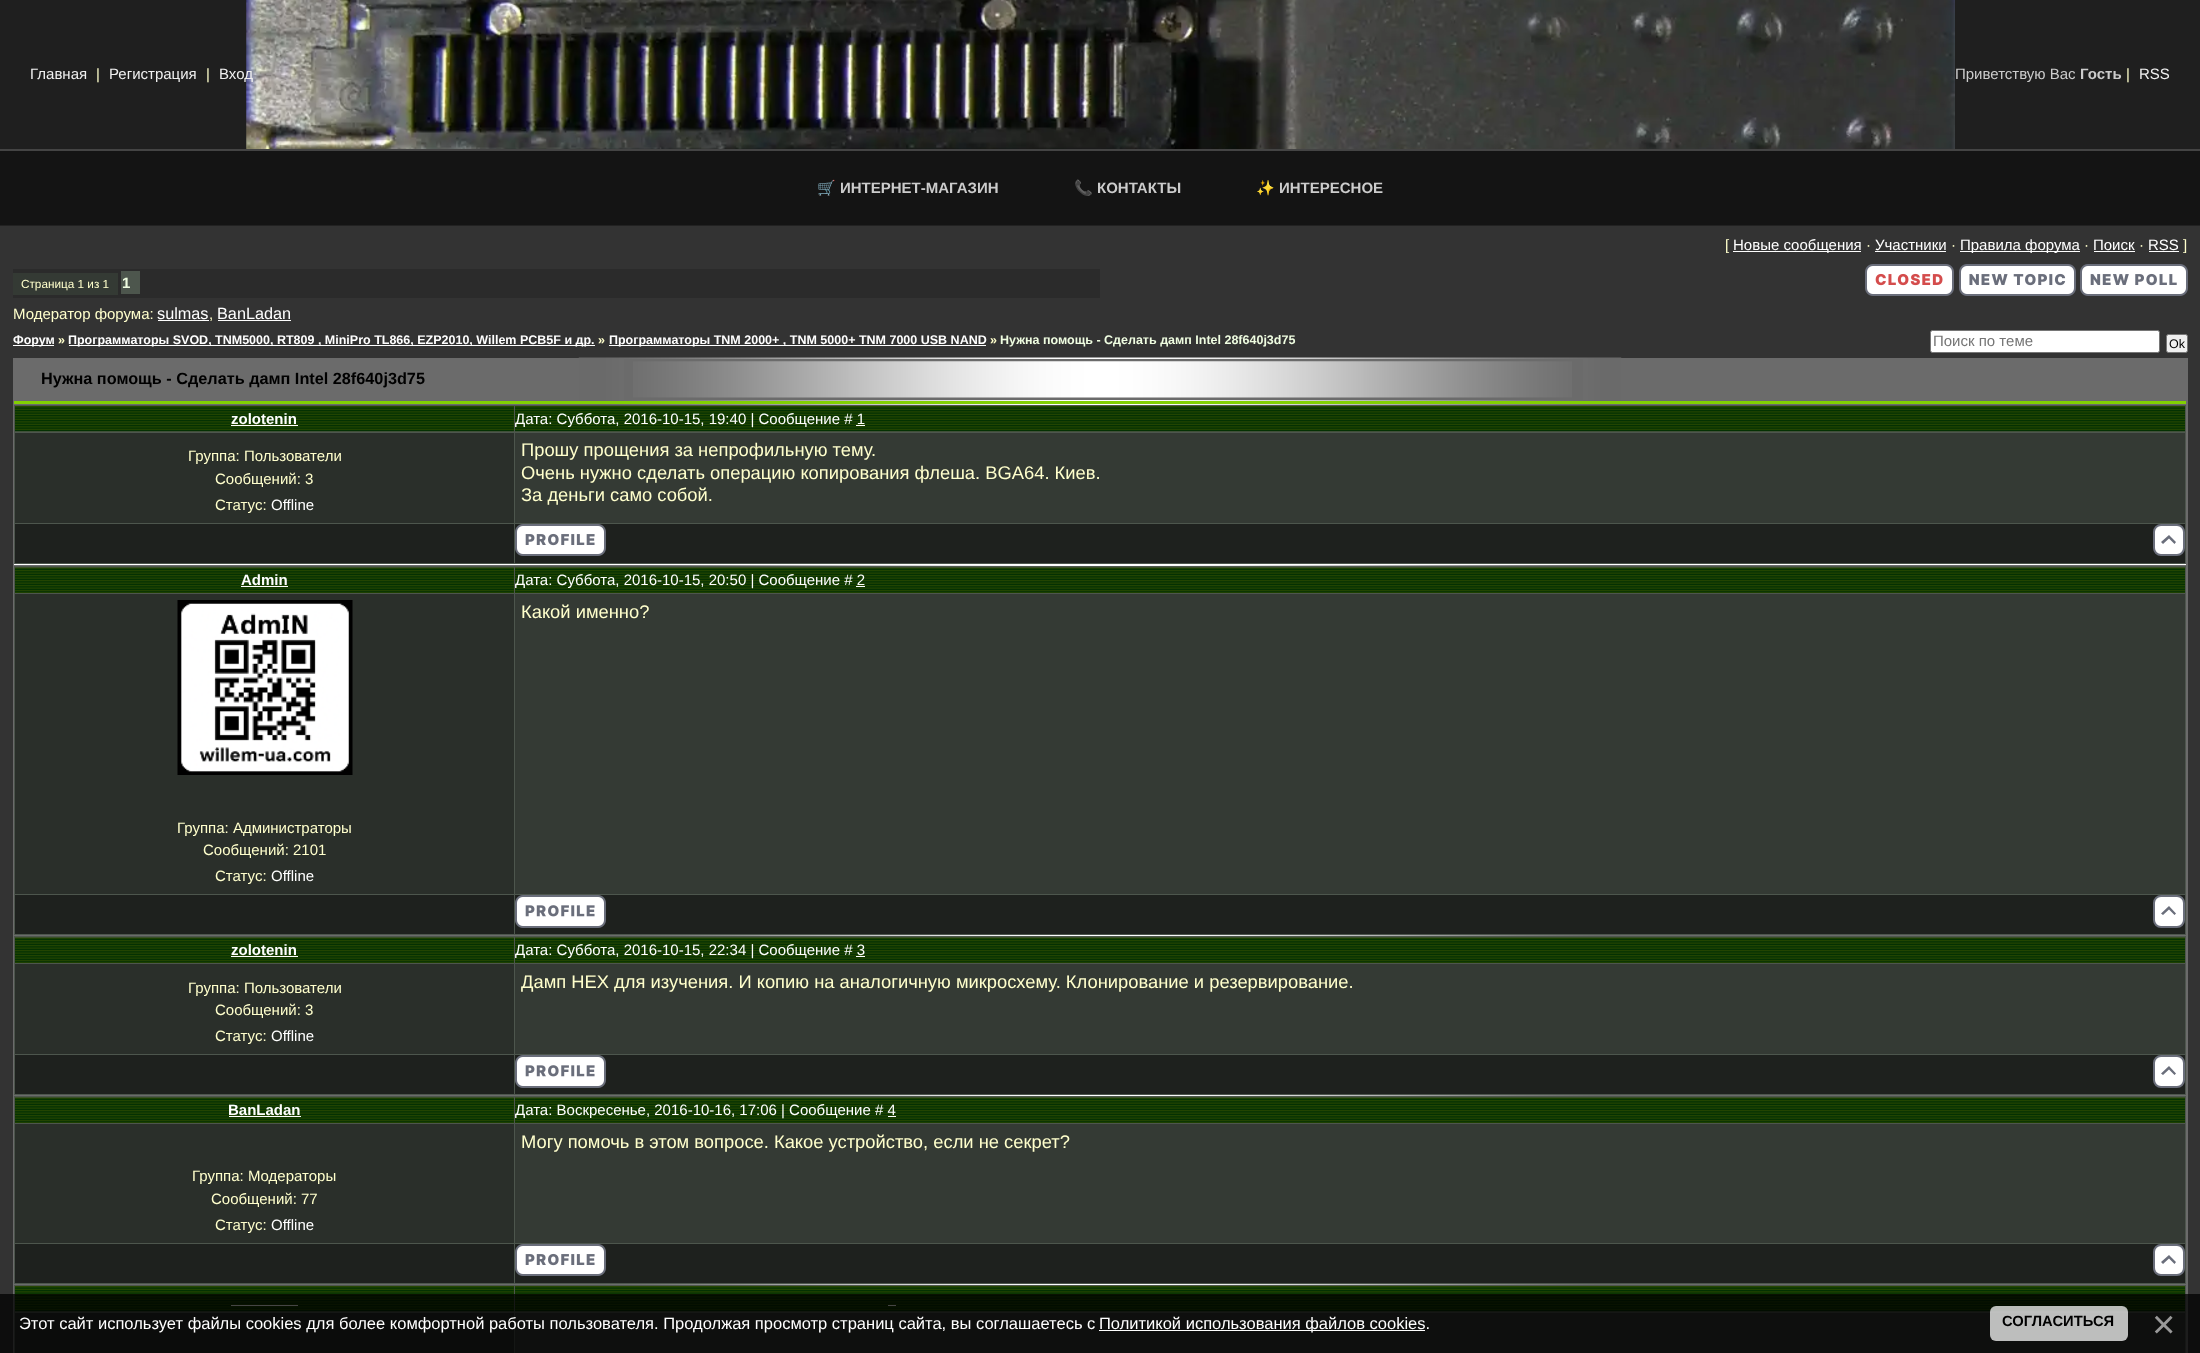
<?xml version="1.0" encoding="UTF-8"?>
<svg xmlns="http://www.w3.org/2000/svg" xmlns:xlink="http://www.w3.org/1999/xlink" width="2200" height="1353">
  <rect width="100%" height="100%" fill="#333333" />
  <rect width="2200" height="149" fill="#1f1f1f" />
  <image x="246" y="0" width="1709" height="149" xlink:href="image1.png" />
  <rect y="149" width="2200" height="2" fill="#444444" />
  <rect y="151" width="2200" height="74" fill="#141414" />
  <rect y="225" width="2200" height="1" fill="#222222" />
  <rect x="1733" y="251" width="128" height="1" fill="#ffffff" />
  <rect x="1875" y="251" width="71" height="1" fill="#ffffff" />
  <rect x="1960" y="251" width="120" height="1" fill="#ffffff" />
  <rect x="2094" y="251" width="41" height="1" fill="#ffffff" />
  <rect x="2149" y="251" width="30" height="1" fill="#ffffff" />
  <rect x="13" y="269" width="1087" height="29" fill="#2b2b2b" />
  <rect x="13" y="273" width="105" height="22" fill="#343a34" />
  <rect x="121" y="271" width="19" height="23" fill="#4d564d" />
  <image x="1865" y="264" width="89" height="32" xlink:href="image2.png" />
  <image x="1959" y="264" width="117" height="32" xlink:href="image3.png" />
  <image x="2080" y="264" width="108" height="32" xlink:href="image4.png" />
  <rect x="158" y="320" width="51" height="1" fill="#ffffff" />
  <rect x="218" y="320" width="73" height="1" fill="#ffffff" />
  <rect x="13" y="345" width="41" height="1" fill="#ffffff" />
  <rect x="69" y="345" width="526" height="1" fill="#ffffff" />
  <rect x="609" y="345" width="377" height="1" fill="#ffffff" />
  <rect x="1930.5" y="330.5" width="229" height="22" rx="2" fill="#ffffff" stroke="#767676" />
  <rect x="2166.5" y="334.5" width="21" height="18" rx="2" fill="#efefef" stroke="#767676" />
  <rect x="13" y="358" width="2175" height="995" fill="#6b6b6b" />
  <image x="578" y="357" width="1044" height="928" xlink:href="image5.png" />
  <rect x="624" y="359" width="959" height="41" fill="#6b6b6b" />
  <image x="633" y="361" width="939" height="37" xlink:href="image6.png" />
  <rect x="14" y="401" width="2172" height="3" fill="#82d002" />
  <rect x="14" y="564" width="2172" height="1" fill="#ffffff" />
  <rect x="14" y="405" width="2172" height="159" fill="#4d564d" />
  <rect x="15" y="406" width="499" height="25" fill="#264601" />
  <image x="15" y="407" width="499" height="25" xlink:href="image7.png" />
  <rect x="231" y="425" width="67" height="1" fill="#ffffff" />
  <rect x="515" y="406" width="1670" height="1" fill="#264601" />
  <image x="515" y="407" width="1670" height="25" xlink:href="image8.png" />
  <rect x="856" y="425" width="9" height="1" fill="#ffffff" />
  <rect x="15" y="433" width="499" height="90" fill="#2a2f2a" />
  <rect x="515" y="433" width="1670" height="90" fill="#343a34" />
  <rect x="15" y="524" width="499" height="39" fill="#1e211e" />
  <rect x="515" y="524" width="1670" height="39" fill="#1e211e" />
  <image x="515" y="524" width="91" height="32" xlink:href="image9.png" />
  <rect x="2154" y="525" width="30" height="30" rx="7" fill="#ffffff" stroke="#6a6e7b" stroke-width="2" />
  <path d="M 2174.5 544 l -5.5 -5.5 l -6 5.5 l -2 -2 l 8 -7 l 7 7 z" fill="#6a6e7b" />
  <rect x="14" y="566" width="2172" height="369" fill="#4d564d" />
  <rect x="15" y="568" width="499" height="25" fill="#264601" />
  <image x="15" y="567" width="499" height="26" xlink:href="image10.png" />
  <rect x="241" y="586" width="47" height="1" fill="#ffffff" />
  <rect x="515" y="592" width="1670" height="1" fill="#264601" />
  <image x="515" y="567" width="1670" height="26" xlink:href="image11.png" />
  <rect x="856" y="586" width="9" height="1" fill="#ffffff" />
  <rect x="515" y="594" width="1670" height="300" fill="#343a34" />
  <rect x="15" y="594" width="499" height="300" fill="#2a2f2a" />
  <image x="177" y="600" width="176" height="175" xlink:href="image12.png" />
  <rect x="15" y="895" width="499" height="39" fill="#1e211e" />
  <rect x="515" y="895" width="1670" height="39" fill="#1e211e" />
  <image x="515" y="895" width="91" height="33" xlink:href="image13.png" />
  <rect x="2154" y="896" width="30" height="31" rx="7" fill="#ffffff" stroke="#6a6e7b" stroke-width="2" />
  <path d="M 2174.5 915 l -5.5 -5.5 l -6 5.5 l -2 -1.5 l 8 -7.5 l 7 7.5 z" fill="#6a6e7b" />
  <rect x="14" y="936" width="2172" height="159" fill="#4d564d" />
  <rect x="15" y="938" width="499" height="25" fill="#264601" />
  <image x="15" y="937" width="499" height="26" xlink:href="image14.png" />
  <rect x="231" y="956" width="67" height="1" fill="#ffffff" />
  <rect x="515" y="962" width="1670" height="1" fill="#264601" />
  <image x="515" y="937" width="1670" height="26" xlink:href="image15.png" />
  <rect x="856" y="956" width="9" height="1" fill="#ffffff" />
  <rect x="15" y="964" width="499" height="90" fill="#2a2f2a" />
  <rect x="515" y="964" width="1670" height="90" fill="#343a34" />
  <rect x="15" y="1055" width="499" height="39" fill="#1e211e" />
  <rect x="515" y="1055" width="1670" height="39" fill="#1e211e" />
  <image x="515" y="1055" width="91" height="33" xlink:href="image13.png" />
  <rect x="2154" y="1056" width="30" height="31" rx="7" fill="#ffffff" stroke="#6a6e7b" stroke-width="2" />
  <path d="M 2174.5 1075 l -5.5 -5.5 l -6 5.5 l -2 -1.5 l 8 -7.5 l 7 7.5 z" fill="#6a6e7b" />
  <rect x="14" y="1096" width="2172" height="188" fill="#4d564d" />
  <rect x="15" y="1098" width="499" height="25" fill="#264601" />
  <image x="15" y="1097" width="499" height="26" xlink:href="image14.png" />
  <rect x="229" y="1116" width="72" height="1" fill="#ffffff" />
  <rect x="515" y="1122" width="1670" height="1" fill="#264601" />
  <image x="515" y="1097" width="1670" height="26" xlink:href="image15.png" />
  <rect x="888" y="1116" width="8" height="1" fill="#ffffff" />
  <rect x="515" y="1124" width="1670" height="119" fill="#343a34" />
  <rect x="15" y="1124" width="499" height="119" fill="#2a2f2a" />
  <rect x="15" y="1244" width="499" height="39" fill="#1e211e" />
  <rect x="515" y="1244" width="1670" height="39" fill="#1e211e" />
  <image x="515" y="1244" width="91" height="32" xlink:href="image9.png" />
  <rect x="2154" y="1245" width="30" height="30" rx="7" fill="#ffffff" stroke="#6a6e7b" stroke-width="2" />
  <path d="M 2174.5 1264 l -5.5 -5.5 l -6 5.5 l -2 -2 l 8 -7 l 7 7 z" fill="#6a6e7b" />
  <rect x="14" y="1285" width="2172" height="68" fill="#4d564d" />
  <rect x="15" y="1286" width="499" height="25" fill="#264601" />
  <image x="15" y="1287" width="499" height="25" xlink:href="image16.png" />
  <rect x="231" y="1305" width="67" height="1" fill="#ffffff" />
  <rect x="515" y="1286" width="1670" height="1" fill="#264601" />
  <image x="515" y="1287" width="1670" height="25" xlink:href="image17.png" />
  <rect x="888" y="1305" width="8" height="1" fill="#ffffff" />
  <rect x="15" y="1313" width="499" height="40" fill="#2a2f2a" />
  <rect x="515" y="1313" width="1670" height="40" fill="#343a34" />
  <rect y="1294" width="2200" height="59" fill="#000000" fill-opacity="0.73" />
  <rect x="1099" y="1330" width="326" height="1" fill="#ffffff" />
  <rect x="1990" y="1306" width="138" height="35" rx="6" fill="#ffffff" fill-opacity="0.73" />
  <text x="30" y="79" style="font-family: Liberation Sans; font-size: 15px; fill: #f0f0f0">Главная</text>
  <text x="96" y="79" style="font-family: Liberation Sans; font-size: 15px; fill: #ffffcc">|</text>
  <text x="109" y="79" style="font-family: Liberation Sans; font-size: 15px; fill: #f0f0f0">Регистрация</text>
  <text x="206" y="79" style="font-family: Liberation Sans; font-size: 15px; fill: #ffffcc">|</text>
  <text x="219" y="79" style="font-family: Liberation Sans; font-size: 15px; fill: #f0f0f0">Вход</text>
  <text x="1955" y="79" style="font-family: Liberation Sans; font-size: 15px; fill: #cccccc">Приветствую Вас</text>
  <text x="2080" y="79" style="font-family: Liberation Sans; font-size: 15px; font-weight: bold; fill: #cccccc">Гость</text>
  <text x="2126" y="79" style="font-family: Liberation Sans; font-size: 15px; fill: #ffffcc">|</text>
  <text x="2139" y="79" style="font-family: Liberation Sans; font-size: 15px; fill: #f0f0f0">RSS</text>
  <text x="817" y="193" style="font-family: Noto Color Emoji; font-size: 15px; font-weight: bold; fill: #cccccc">🛒</text>
  <text x="840" y="193" style="font-family: Liberation Sans; font-size: 15px; font-weight: bold; fill: #cccccc">ИНТЕРНЕТ-МАГАЗИН</text>
  <text x="1074" y="193" style="font-family: Noto Color Emoji; font-size: 15px; font-weight: bold; fill: #cccccc">📞</text>
  <text x="1097" y="193" style="font-family: Liberation Sans; font-size: 15px; font-weight: bold; fill: #cccccc">КОНТАКТЫ</text>
  <text x="1256" y="193" style="font-family: Noto Color Emoji; font-size: 15px; font-weight: bold; fill: #cccccc">✨</text>
  <text x="1279" y="193" style="font-family: Liberation Sans; font-size: 15px; font-weight: bold; fill: #cccccc">ИНТЕРЕСНОЕ</text>
  <text x="1725" y="250" style="font-family: Liberation Sans; font-size: 15px; fill: #ffffcc">[</text>
  <text x="1733" y="250" style="font-family: Liberation Sans; font-size: 15px; fill: #ffffff">Новые сообщения</text>
  <text x="1866" y="250" style="font-family: Liberation Sans; font-size: 15px; fill: #ffffcc">·</text>
  <text x="1875" y="250" style="font-family: Liberation Sans; font-size: 15px; fill: #ffffff">Участники</text>
  <text x="1951" y="250" style="font-family: Liberation Sans; font-size: 15px; fill: #ffffcc">·</text>
  <text x="1960" y="250" style="font-family: Liberation Sans; font-size: 15px; fill: #ffffff">Правила форума</text>
  <text x="2084" y="250" style="font-family: Liberation Sans; font-size: 15px; fill: #ffffcc">·</text>
  <text x="2093" y="250" style="font-family: Liberation Sans; font-size: 15px; fill: #ffffff">Поиск</text>
  <text x="2139" y="250" style="font-family: Liberation Sans; font-size: 15px; fill: #ffffcc">·</text>
  <text x="2148" y="250" style="font-family: Liberation Sans; font-size: 15px; fill: #ffffff">RSS</text>
  <text x="2183" y="250" style="font-family: Liberation Sans; font-size: 15px; fill: #ffffcc">]</text>
  <text x="21" y="288" style="font-family: Liberation Sans; font-size: 11.75px; fill: #ffffcc">Страница 1 из 1</text>
  <text x="122" y="288" style="font-family: Liberation Sans; font-size: 15px; font-weight: bold; fill: #effde1">1</text>
  <text x="13" y="319" style="font-family: Liberation Sans; font-size: 15px; fill: #ffffcc">Модератор форума:</text>
  <text x="157" y="319" style="font-family: Liberation Sans; font-size: 16.25px; fill: #ffffff">sulmas</text>
  <text x="209" y="319" style="font-family: Liberation Sans; font-size: 15px; fill: #ffffcc">,</text>
  <text x="217" y="319" style="font-family: Liberation Sans; font-size: 16.25px; fill: #ffffff">BanLadan</text>
  <text x="13" y="344" style="font-family: Liberation Sans; font-size: 12.5px; font-weight: bold; fill: #ffffff">Форум</text>
  <text x="58" y="344" style="font-family: Liberation Sans; font-size: 12.5px; font-weight: bold; fill: #ffffcc">»</text>
  <text x="68" y="344" style="font-family: Liberation Sans; font-size: 12.5px; font-weight: bold; fill: #ffffff">Программаторы SVOD, TNM5000, RT809 , MiniPro TL866, EZP2010, Willem PCB5F и др.</text>
  <text x="598" y="344" style="font-family: Liberation Sans; font-size: 12.5px; font-weight: bold; fill: #ffffcc">»</text>
  <text x="609" y="344" style="font-family: Liberation Sans; font-size: 12.5px; font-weight: bold; fill: #ffffff">Программаторы TNM 2000+ , TNM 5000+ TNM 7000 USB NAND</text>
  <text x="990" y="344" style="font-family: Liberation Sans; font-size: 12.5px; font-weight: bold; fill: #ffffcc">»</text>
  <text x="1000" y="344" style="font-family: Liberation Sans; font-size: 12.5px; font-weight: bold; fill: #effde1">Нужна помощь - Сделать дамп Intel 28f640j3d75</text>
  <text x="1933" y="346" style="font-family: Liberation Sans; font-size: 15px; fill: #757575">Поиск по теме</text>
  <text x="2169" y="348" style="font-family: Liberation Sans; font-size: 12.5px; fill: #000000">Ok</text>
  <text x="41" y="384" style="font-family: Liberation Sans; font-size: 16.25px; font-weight: bold; fill: #000000">Нужна помощь - Сделать дамп Intel 28f640j3d75</text>
  <text x="231" y="424" style="font-family: Liberation Sans; font-size: 15px; font-weight: bold; fill: #ffffff">zolotenin</text>
  <text x="515" y="424" style="font-family: Liberation Sans; font-size: 15px; fill: #ffffff">Дата: Суббота, 2016-10-15, 19:40 | Сообщение # 1</text>
  <text x="188" y="461" style="font-family: Liberation Sans; font-size: 15px; fill: #ffffcc">Группа: Пользователи</text>
  <text x="215" y="484" style="font-family: Liberation Sans; font-size: 15px; fill: #ffffcc">Сообщений: 3</text>
  <text x="215" y="510" style="font-family: Liberation Sans; font-size: 15px; fill: #ffffcc">Статус:</text>
  <text x="271" y="510" style="font-family: Liberation Sans; font-size: 15px; fill: #ffffff">Offline</text>
  <text x="521" y="456" style="font-family: Liberation Sans; font-size: 18.35px; fill: #ffffcc">Прошу прощения за непрофильную тему.</text>
  <text x="521" y="479" style="font-family: Liberation Sans; font-size: 18.35px; fill: #ffffcc">Очень нужно сделать операцию копирования флеша. BGA64. Киев.</text>
  <text x="521" y="501" style="font-family: Liberation Sans; font-size: 18.35px; fill: #ffffcc">За деньги само собой.</text>
  <text x="241" y="585" style="font-family: Liberation Sans; font-size: 15px; font-weight: bold; fill: #ffffff">Admin</text>
  <text x="515" y="585" style="font-family: Liberation Sans; font-size: 15px; fill: #ffffff">Дата: Суббота, 2016-10-15, 20:50 | Сообщение # 2</text>
  <text x="521" y="618" style="font-family: Liberation Sans; font-size: 18.35px; fill: #ffffcc">Какой именно?</text>
  <text x="177" y="833" style="font-family: Liberation Sans; font-size: 15px; fill: #ffffcc">Группа: Администраторы</text>
  <text x="203" y="855" style="font-family: Liberation Sans; font-size: 15px; fill: #ffffcc">Сообщений: 2101</text>
  <text x="215" y="881" style="font-family: Liberation Sans; font-size: 15px; fill: #ffffcc">Статус:</text>
  <text x="271" y="881" style="font-family: Liberation Sans; font-size: 15px; fill: #ffffff">Offline</text>
  <text x="231" y="955" style="font-family: Liberation Sans; font-size: 15px; font-weight: bold; fill: #ffffff">zolotenin</text>
  <text x="515" y="955" style="font-family: Liberation Sans; font-size: 15px; fill: #ffffff">Дата: Суббота, 2016-10-15, 22:34 | Сообщение # 3</text>
  <text x="188" y="993" style="font-family: Liberation Sans; font-size: 15px; fill: #ffffcc">Группа: Пользователи</text>
  <text x="215" y="1015" style="font-family: Liberation Sans; font-size: 15px; fill: #ffffcc">Сообщений: 3</text>
  <text x="215" y="1041" style="font-family: Liberation Sans; font-size: 15px; fill: #ffffcc">Статус:</text>
  <text x="271" y="1041" style="font-family: Liberation Sans; font-size: 15px; fill: #ffffff">Offline</text>
  <text x="521" y="988" style="font-family: Liberation Sans; font-size: 18.35px; fill: #ffffcc">Дамп HEX для изучения. И копию на аналогичную микросхему. Клонирование и резервирование.</text>
  <text x="228" y="1115" style="font-family: Liberation Sans; font-size: 15px; font-weight: bold; fill: #ffffff">BanLadan</text>
  <text x="515" y="1115" style="font-family: Liberation Sans; font-size: 15px; fill: #ffffff">Дата: Воскресенье, 2016-10-16, 17:06 | Сообщение # 4</text>
  <text x="521" y="1148" style="font-family: Liberation Sans; font-size: 18.35px; fill: #ffffcc">Могу помочь в этом вопросе. Какое устройство, если не секрет?</text>
  <text x="192" y="1181" style="font-family: Liberation Sans; font-size: 15px; fill: #ffffcc">Группа: Модераторы</text>
  <text x="211" y="1204" style="font-family: Liberation Sans; font-size: 15px; fill: #ffffcc">Сообщений: 77</text>
  <text x="215" y="1230" style="font-family: Liberation Sans; font-size: 15px; fill: #ffffcc">Статус:</text>
  <text x="271" y="1230" style="font-family: Liberation Sans; font-size: 15px; fill: #ffffff">Offline</text>
  <text x="19" y="1329" style="font-family: Liberation Sans; font-size: 16.5px; fill: #ffffff">Этот сайт использует файлы cookies для более комфортной работы пользователя. Продолжая просмотр страниц сайта, вы соглашаетесь с</text>
  <text x="1099" y="1329" style="font-family: Liberation Sans; font-size: 16.5px; fill: #ffffff">Политикой использования файлов cookies.</text>
  <text x="2002" y="1326" style="font-family: Liberation Sans; font-size: 14.75px; font-weight: bold; fill: #000000">СОГЛАСИТЬСЯ</text>
  <text x="2152" y="1338" style="font-family: Liberation Sans; font-size: 40px; fill: #999999">×</text>
</svg>
